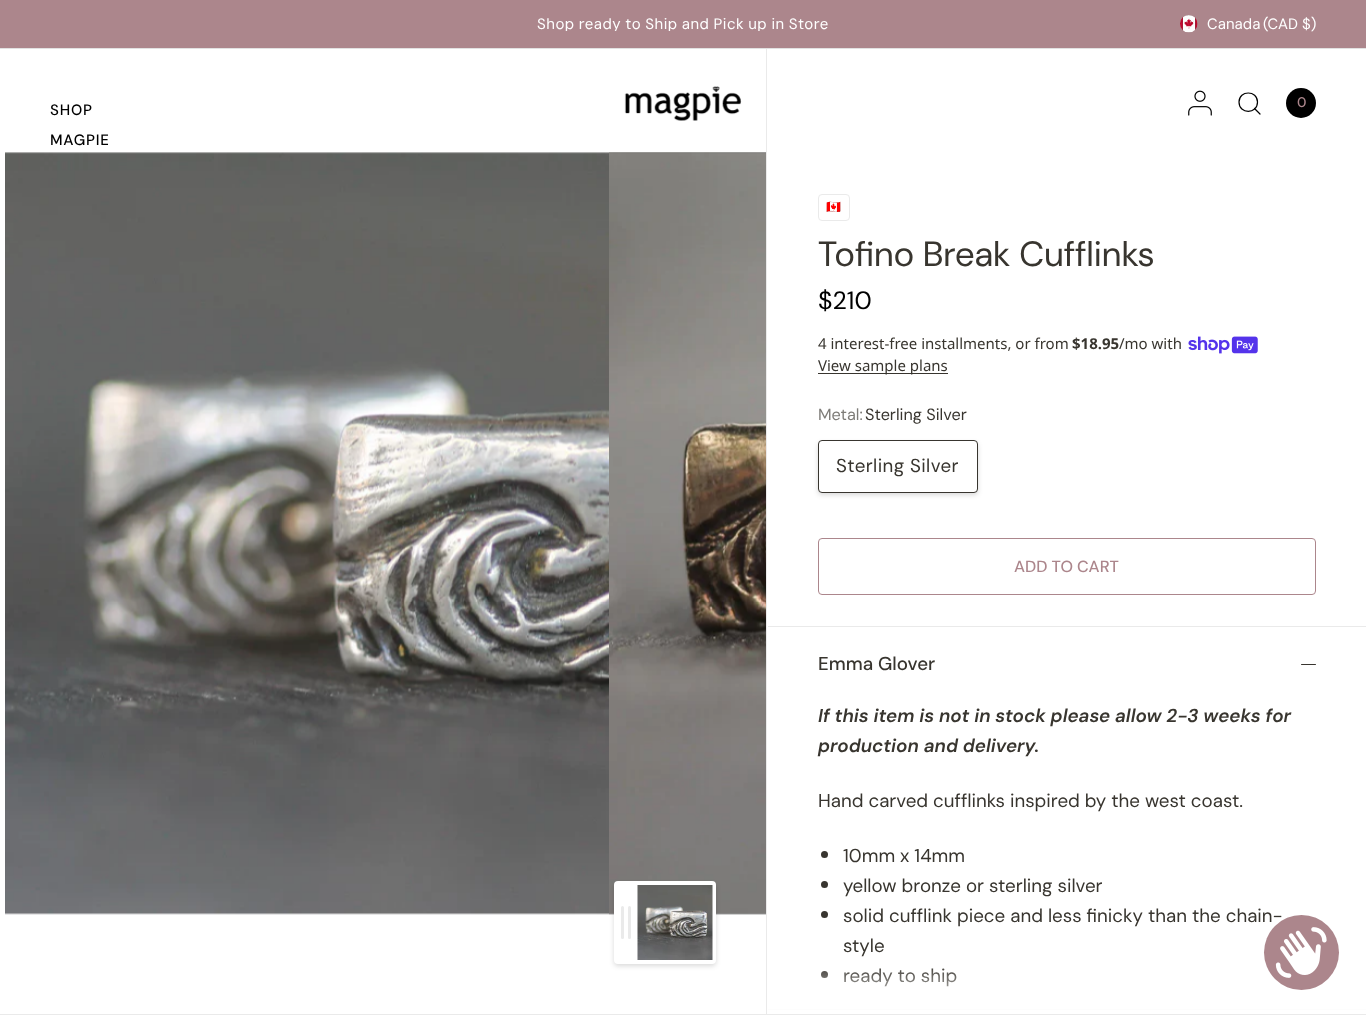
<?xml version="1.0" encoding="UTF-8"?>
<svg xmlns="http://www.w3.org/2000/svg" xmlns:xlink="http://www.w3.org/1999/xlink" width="1366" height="1016">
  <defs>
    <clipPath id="clip1"><rect x="409" y="16" width="550" height="15" /></clipPath>
    <linearGradient id="g1" gradientUnits="userSpaceOnUse" x1="1067" y1="964" x2="1067" y2="1014"><stop offset="0" stop-color="#ffffff" stop-opacity="0" /><stop offset="1" stop-color="#ffffff" /></linearGradient>
  </defs>
  <rect width="100%" height="100%" fill="#ffffff" />
  <rect width="1366" height="48" fill="#ac868c" />
  <rect y="48" width="1366" height="1" fill="#e2e2e2" />
  <image x="1180" y="15" width="18" height="18" xlink:href="image1.png" />
  <image x="624" y="86" width="118" height="35" xlink:href="image2.png" />
  <image x="1188" y="90" width="24" height="26" xlink:href="image3.png" />
  <path d="M 1254.5 108.5 l 5.5 5.5 m -2.5 -12 c 0 12.5 -18.5 12.5 -18.5 0 c 0 -12 18.5 -12 18.5 0 z" fill="none" stroke="#000000" stroke-width="1.2" stroke-linecap="round" stroke-linejoin="round" />
  <circle cx="1301" cy="103" r="15" fill="#000000" />
  <rect y="1014" width="1366" height="1" fill="#eaeaea" />
  <image x="5" y="152" width="761" height="763" xlink:href="image4.png" />
  <image x="609" y="152" width="157" height="763" xlink:href="image5.png" />
  <rect x="614" y="884" width="102" height="82" rx="4" fill="#000000" fill-opacity="0.15" filter="blur(2.5px)" />
  <rect x="614" y="881" width="102" height="83" rx="4" fill="#ffffff" />
  <rect x="621" y="906" width="3" height="33" rx="1.5" fill="#eaeaea" />
  <rect x="628" y="906" width="3" height="33" rx="1.5" fill="#eaeaea" />
  <image x="637" y="885" width="76" height="75" xlink:href="image6.png" />
  <rect x="766" y="49" width="1" height="965" fill="#eaeaea" />
  <rect x="818.5" y="194.5" width="31" height="26" rx="3.5" fill="none" stroke="#eaeaea" />
  <image x="1188" y="336" width="70" height="18" xlink:href="image7.png" />
  <rect x="818" y="373" width="130" height="1" fill="#38352f" />
  <rect x="818" y="443" width="160" height="52" rx="4" fill="#000000" fill-opacity="0.15" filter="blur(2.5px)" />
  <rect x="818.5" y="440.5" width="159" height="52" rx="3.5" fill="#ffffff" stroke="#38352f" />
  <rect x="818.5" y="538.5" width="497" height="56" rx="3.5" fill="none" stroke="#ac868c" />
  <rect x="768" y="626" width="598" height="1" fill="#eaeaea" />
  <rect x="768" y="1009" width="598" height="1" fill="#eaeaea" />
  <rect x="1301" y="664" width="15" height="1" rx="0.5" fill="#38352f" />
  <circle cx="824.5" cy="854.5" r="3.5" fill="#38352f" />
  <circle cx="824.5" cy="884.5" r="3.5" fill="#38352f" />
  <circle cx="824.5" cy="914.5" r="3.5" fill="#38352f" />
  <circle cx="824.5" cy="974.5" r="3.5" fill="#38352f" />
  <g clip-path="url(#clip1)">
    <text x="537" y="29" word-spacing="-0.25" style="font-family: DM Sans; font-size: 15px; letter-spacing: 0.45px; fill: #ffffff">Shop ready to Ship and Pick up in Store</text>
  </g>
  <text x="1207" y="29" style="font-family: DM Sans; font-size: 15px; fill: #ffffff">Canada</text>
  <text x="1263" y="29" style="font-family: DM Sans; font-size: 15px; fill: #ffffff">(CAD $)</text>
  <text x="1297" y="107" style="font-family: 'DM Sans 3'; font-size: 14px; font-weight: 500; fill: #ac868c">0</text>
  <text x="50" y="115" style="font-family: 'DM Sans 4'; font-size: 15px; font-weight: 500; letter-spacing: 0.75px; fill: #000000">SHOP</text>
  <text x="50" y="145" style="font-family: 'DM Sans 4'; font-size: 15px; font-weight: 500; letter-spacing: 0.75px; fill: #000000">MAGPIE</text>
  <text x="826" y="211" style="font-family: Noto Color Emoji; font-size: 12px; fill: #38352f">🇨🇦</text>
  <text x="818" y="266" style="font-family: 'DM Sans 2'; font-size: 35px; fill: #38352f">Tofino Break Cufflinks</text>
  <text x="818" y="309" style="font-family: 'DM Sans 3'; font-size: 25px; fill: #000000">$210</text>
  <text x="818" y="349" style="font-family: Noto Sans; font-size: 15px; fill: #38352f">4 interest-free installments, or from</text>
  <text x="1072" y="349" style="font-family: Noto Sans; font-size: 15px; font-weight: bold; fill: #38352f">$18.95</text>
  <text x="1119" y="349" style="font-family: Noto Sans; font-size: 15px; fill: #38352f">/mo with</text>
  <text x="818" y="371" style="font-family: Noto Sans; font-size: 15px; fill: #38352f">View sample plans</text>
  <text x="818" y="420" style="font-family: 'DM Sans 4'; font-size: 16.25px; fill: #7e7c78">Metal:</text>
  <text x="865" y="420" style="font-family: 'DM Sans 4'; font-size: 16.25px; fill: #38352f">Sterling Silver</text>
  <text x="836" y="472" style="font-family: 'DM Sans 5'; font-size: 18.75px; letter-spacing: 0.4px; fill: #38352f">Sterling Silver</text>
  <text x="1014" y="572" style="font-family: 'DM Sans 2'; font-size: 16.25px; font-weight: 500; fill: #ac868c">ADD TO CART</text>
  <text x="818" y="670" style="font-family: DM Sans; font-size: 18.75px; font-weight: 500; fill: #38352f">Emma Glover</text>
  <text x="818" y="722" style="font-family: DM Sans; font-size: 18.75px; font-weight: 600; font-style: italic; fill: #38352f">If this item is not in stock please allow 2-3 weeks for</text>
  <text x="818" y="752" style="font-family: DM Sans; font-size: 18.75px; font-weight: 600; font-style: italic; fill: #38352f">production and delivery.</text>
  <text x="818" y="807" style="font-family: 'DM Sans 5'; font-size: 18.75px; fill: #38352f">Hand carved cufflinks inspired by the west coast.</text>
  <text x="843" y="862" style="font-family: 'DM Sans 5'; font-size: 18.75px; fill: #38352f">10mm x 14mm</text>
  <text x="843" y="892" style="font-family: 'DM Sans 5'; font-size: 18.75px; fill: #38352f">yellow bronze or sterling silver</text>
  <text x="843" y="922" style="font-family: 'DM Sans 5'; font-size: 18.75px; fill: #38352f">solid cufflink piece and less finicky than the chain-</text>
  <text x="843" y="952" style="font-family: 'DM Sans 5'; font-size: 18.75px; fill: #38352f">style</text>
  <text x="843" y="982" style="font-family: 'DM Sans 5'; font-size: 18.75px; fill: #38352f">ready to ship</text>
  <rect x="768" y="968" width="598" height="42" fill="url(#g1)" />
  <circle cx="1301.5" cy="952.5" r="37.5" fill="#ac868c" />
  <image x="1275" y="927" width="52" height="51" xlink:href="image8.png" />
</svg>
